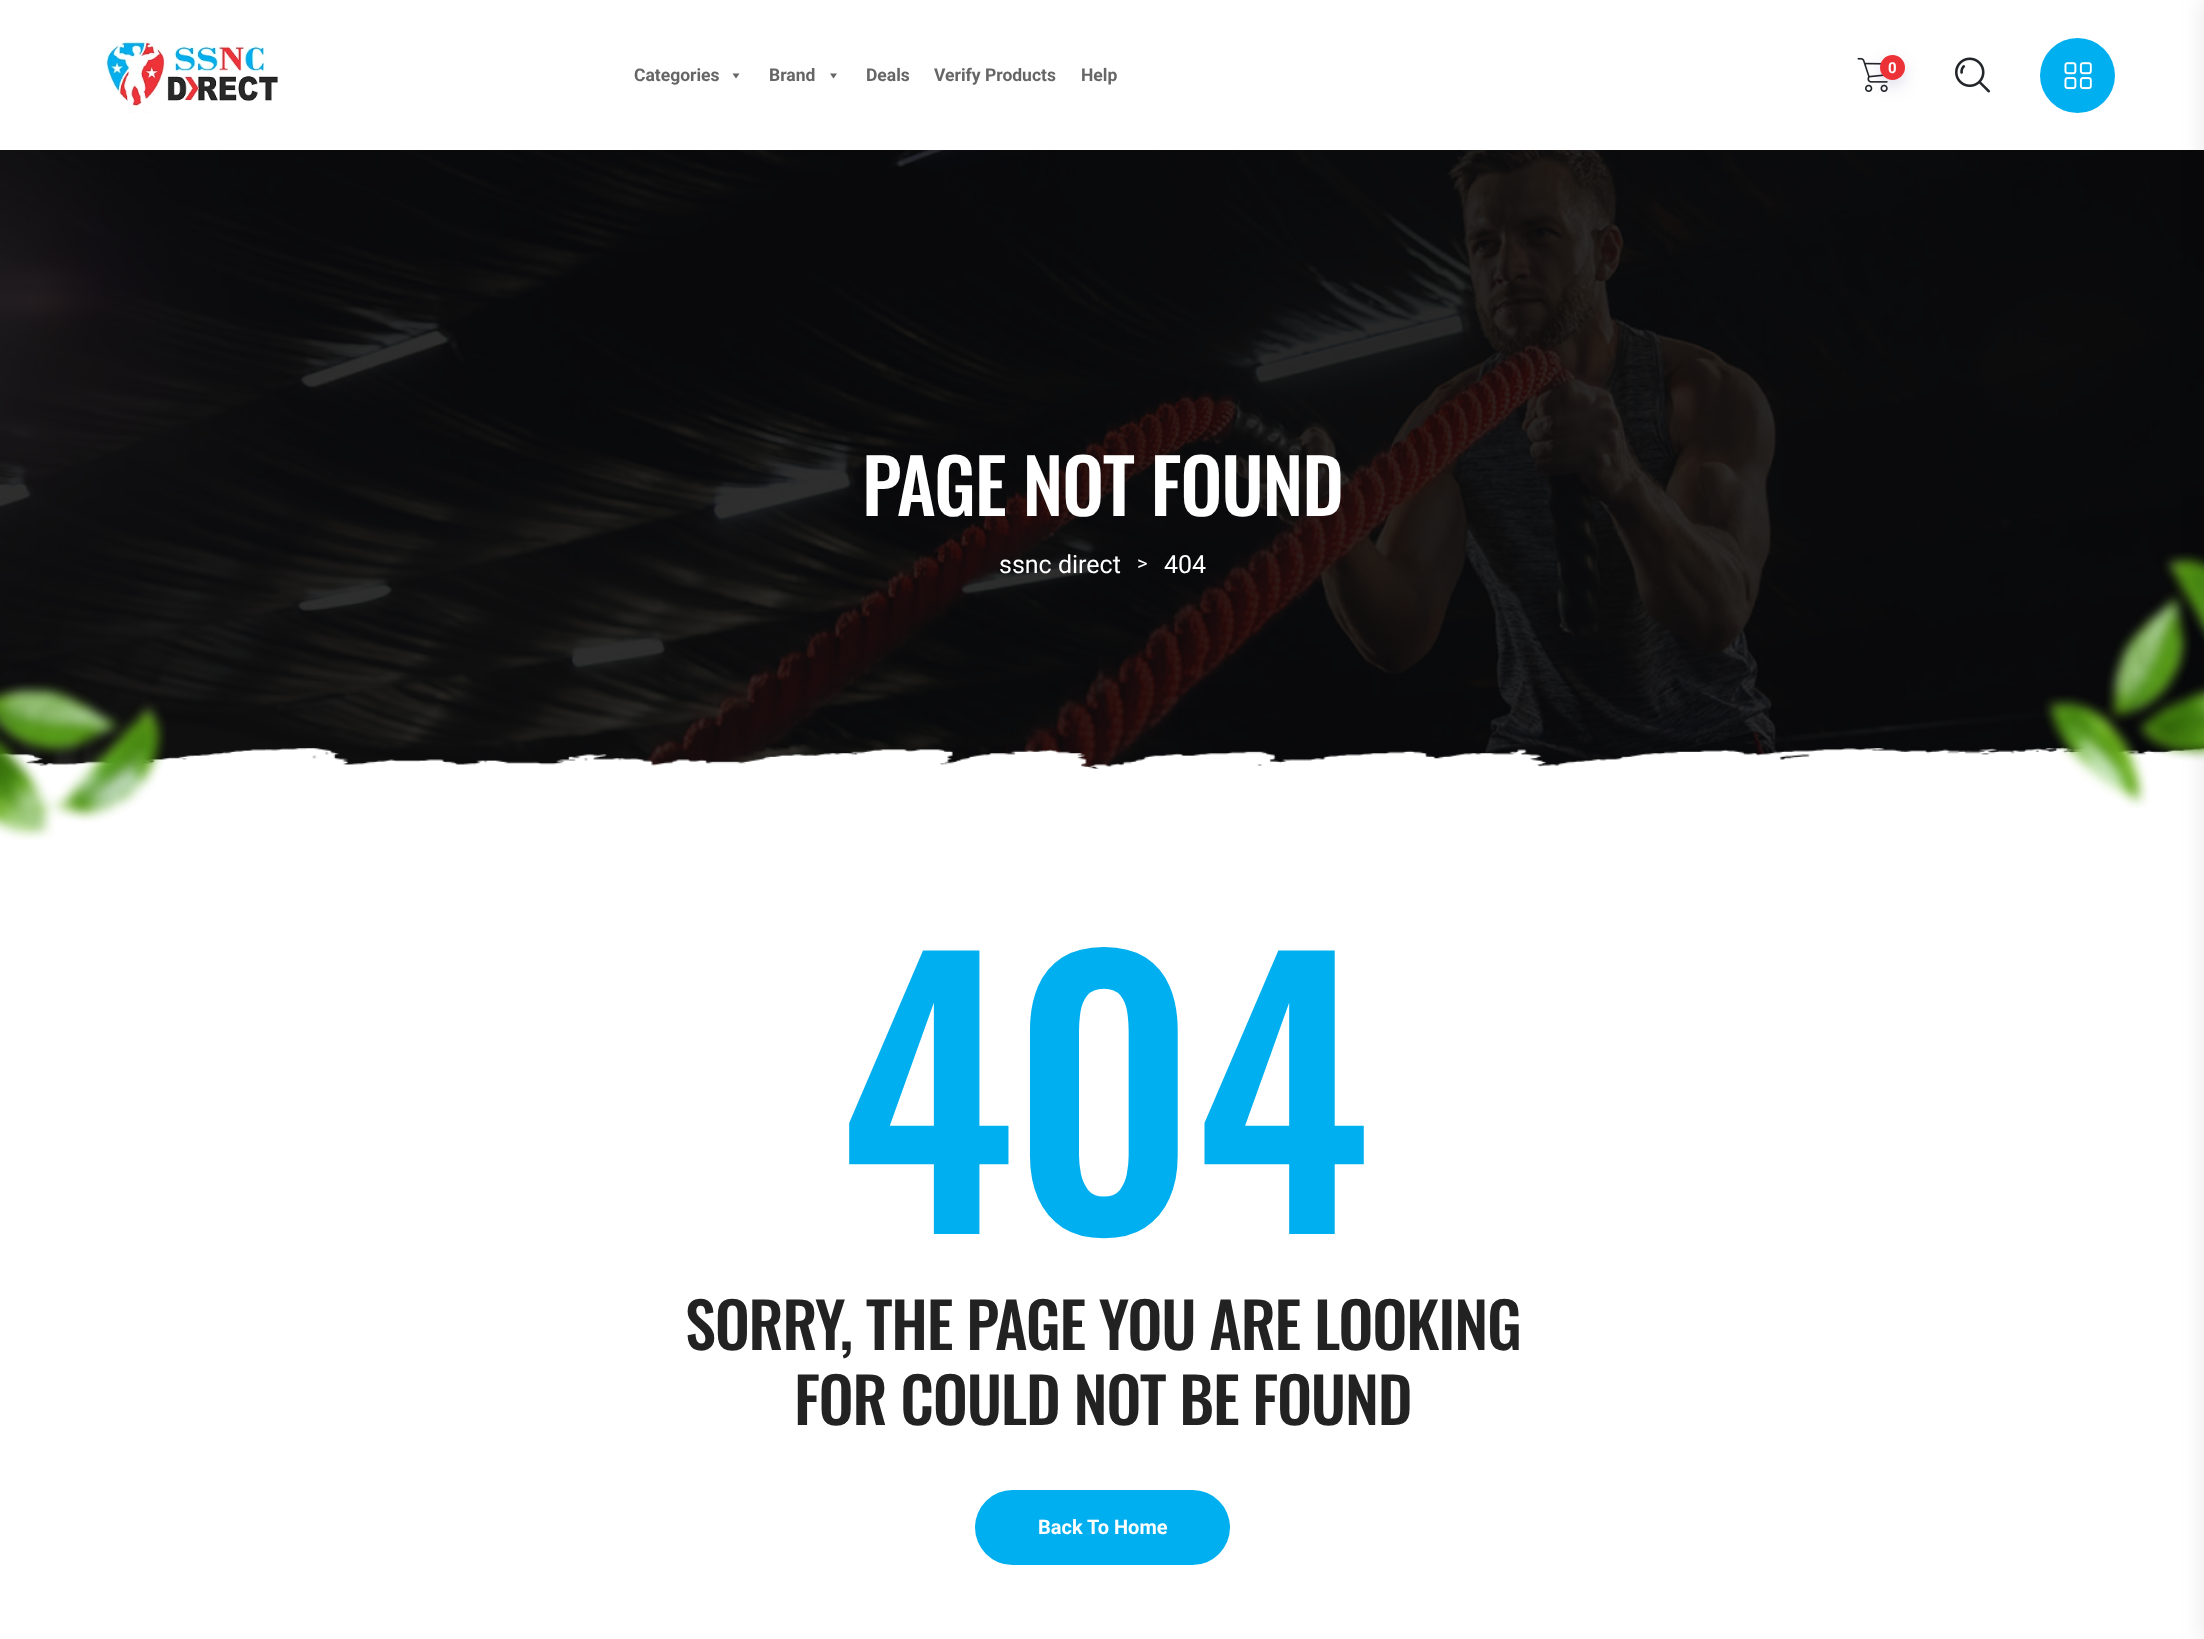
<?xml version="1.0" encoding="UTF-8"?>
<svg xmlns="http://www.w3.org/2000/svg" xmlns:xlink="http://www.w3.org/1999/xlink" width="2204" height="1639">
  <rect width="100%" height="100%" fill="#ffffff" />
  <image x="102" y="40" width="177" height="73" xlink:href="image1.png" />
  <path d="M 739.5 73.5 l -3.5 5 l -3.5 -5 z" fill="#666666" />
  <path d="M 837 73.5 l -3.5 5 l -3.5 -5 z" fill="#666666" />
  <image x="1857" y="57" width="31" height="35" xlink:href="image2.png" />
  <rect x="1879" y="60" width="27" height="28" rx="13.5" fill="#47337f" fill-opacity="0.14" filter="blur(7.5px)" />
  <circle cx="1892.5" cy="67.5" r="12.5" fill="#ed3237" />
  <image x="1955" y="57" width="35" height="36" xlink:href="image3.png" />
  <circle cx="2077.5" cy="75.5" r="37.5" fill="#00afef" />
  <image x="2064" y="62" width="28" height="28" xlink:href="image4.png" />
  <image x="0" y="150" width="2204" height="619" xlink:href="image5.png" />
  <image x="0" y="747" width="2204" height="22" xlink:href="image8.png" />
  <image x="2043" y="552" width="161" height="256" xlink:href="image7.png" />
  <rect x="2198" width="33" height="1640" fill="#000000" fill-opacity="0.06" filter="blur(9px)" />
  <image x="0" y="681" width="167" height="159" xlink:href="image6.png" />
  <rect x="975" y="1490" width="255" height="75" rx="37.5" fill="#00afef" />
  <text x="634" y="81" style="font-family: Roboto; font-size: 17.5px; font-weight: bold; fill: #666666">Categories</text>
  <text x="769" y="81" style="font-family: Roboto; font-size: 17.5px; font-weight: bold; fill: #666666">Brand</text>
  <text x="866" y="81" style="font-family: Roboto; font-size: 17.5px; font-weight: bold; fill: #666666">Deals</text>
  <text x="934" y="81" style="font-family: Roboto; font-size: 17.5px; font-weight: bold; fill: #666666">Verify Products</text>
  <text x="1081" y="81" style="font-family: Roboto; font-size: 17.5px; font-weight: bold; fill: #666666">Help</text>
  <text x="1888" y="73" style="font-family: Roboto; font-size: 15px; font-weight: bold; fill: #ffffff">0</text>
  <text x="862" y="516" style="font-family: Oswald; font-size: 75px; font-weight: 500; letter-spacing: -1.25px; fill: #ffffff">PAGE NOT FOUND</text>
  <text x="999" y="573" style="font-family: Roboto; font-size: 25px; fill: #ffffff">ssnc direct</text>
  <text x="1137" y="570" style="font-family: Roboto; font-size: 20px; fill: #ffffff">&gt;</text>
  <text x="1164" y="573" style="font-family: Roboto; font-size: 25px; fill: #ffffff">404</text>
  <text x="838" y="1234" style="font-family: Oswald; font-size: 350px; font-weight: 500; letter-spacing: -4px; fill: #00afef">404</text>
  <text x="685" y="1350" style="font-family: Oswald; font-size: 62.5px; font-weight: 500; letter-spacing: -1.25px; fill: #222222">SORRY, THE PAGE YOU ARE LOOKING</text>
  <text x="794" y="1425" style="font-family: Oswald; font-size: 62.5px; font-weight: 500; letter-spacing: -1.25px; fill: #222222">FOR COULD NOT BE FOUND</text>
  <text x="1038" y="1534" style="font-family: Roboto; font-size: 20px; font-weight: bold; fill: #ffffff">Back To Home</text>
</svg>
